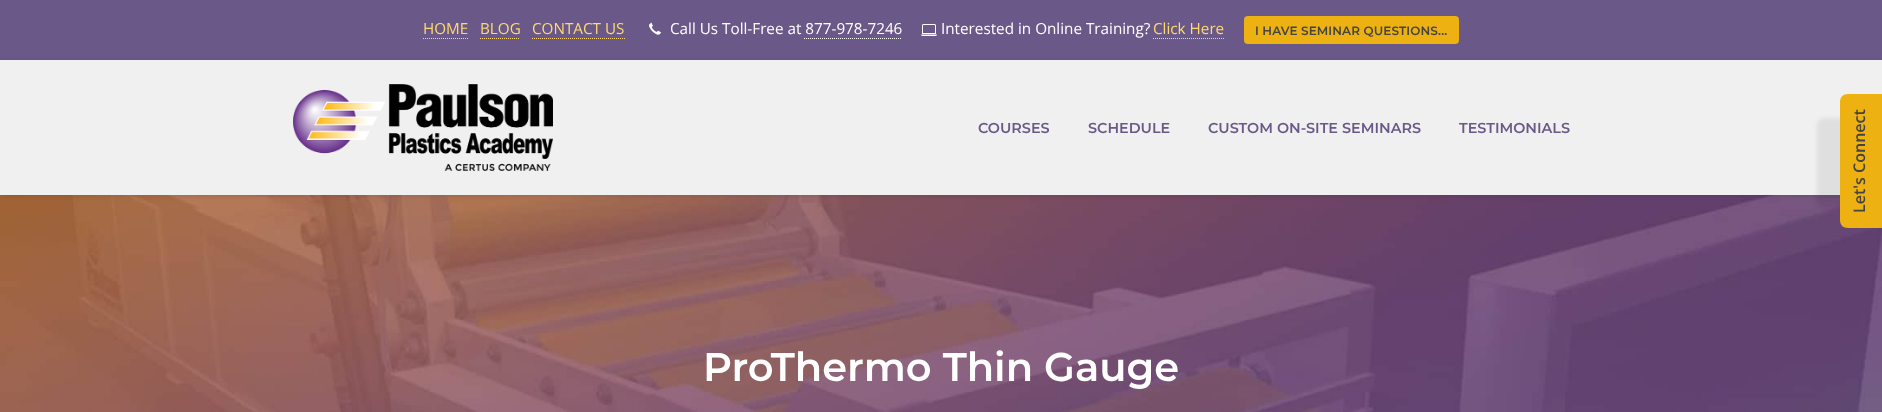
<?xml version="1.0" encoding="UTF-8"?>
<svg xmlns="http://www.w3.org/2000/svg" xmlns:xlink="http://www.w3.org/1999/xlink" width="1882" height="412">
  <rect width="100%" height="100%" fill="#6a5988" />
  <path d="M 423 38.5 h 45" fill="none" stroke="#ffd970" stroke-dasharray="1 1" />
  <path d="M 480 38.5 h 40" fill="none" stroke="#ffd970" stroke-dasharray="1 1" />
  <path d="M 532 38.5 h 93" fill="none" stroke="#ffd970" stroke-dasharray="1 1" />
  <image x="649" y="22" width="13" height="13" xlink:href="image1.png" />
  <path d="M 804 38.5 h 97" fill="none" stroke="#ffffff" stroke-dasharray="1 1" />
  <image x="921" y="24" width="16" height="12" xlink:href="image2.png" />
  <path d="M 1153 38.5 h 71" fill="none" stroke="#ffd970" stroke-dasharray="1 1" />
  <rect x="1244" y="16" width="215" height="28" rx="4" fill="#edb111" />
  <image x="0" y="195" width="1882" height="217" xlink:href="image3.png" />
  <rect y="61" width="1882" height="135" fill="#000000" fill-opacity="0.1" filter="blur(2.5px)" />
  <rect y="60" width="1882" height="135" fill="#f0f0f0" />
  <rect x="1817" y="118" width="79" height="90" rx="8" fill="#000000" fill-opacity="0.07" filter="blur(2px)" />
  <path d="M 1840 220 v -118 c 0 -5 3 -8 8 -8 h 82 v 134 h -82 c -5 0 -8 -3 -8 -8 z" fill="#edb111" />
  <image x="293" y="84" width="260" height="87" xlink:href="image4.png" />
  <text x="423" y="34" style="font-family: Open Sans; font-size: 15.25px; fill: #ffd970">HOME</text>
  <text x="480" y="34" style="font-family: Open Sans; font-size: 15.25px; fill: #ffd970">BLOG</text>
  <text x="532" y="34" style="font-family: Open Sans; font-size: 15.25px; fill: #ffd970">CONTACT US</text>
  <text x="670" y="34" style="font-family: Open Sans; font-size: 15.25px; fill: #ffffff">Call Us Toll-Free at 877-978-7246</text>
  <text x="941" y="34" style="font-family: Open Sans; font-size: 15.25px; fill: #ffffff">Interested in Online Training?</text>
  <text x="1153" y="34" style="font-family: Open Sans; font-size: 15.25px; fill: #ffd970">Click Here</text>
  <text x="1255" y="35" style="font-family: Montserrat; font-size: 12px; font-weight: 600; letter-spacing: 0.1px; fill: #444444">I HAVE SEMINAR QUESTIONS...</text>
  <text x="1865" y="213" transform="rotate(-90 1865 213)" style="font-family: Open Sans; font-size: 16px; font-weight: 600; fill: #444444">Let's Connect</text>
  <text x="703" y="381" style="font-family: Montserrat; font-size: 40px; font-weight: 600; fill: #ffffff">ProThermo Thin Gauge</text>
  <text x="978" y="133" style="font-family: Montserrat; font-size: 14.4px; font-weight: 600; fill: #6a5988">COURSES</text>
  <text x="1088" y="133" style="font-family: Montserrat; font-size: 14.4px; font-weight: 600; fill: #6a5988">SCHEDULE</text>
  <text x="1208" y="133" style="font-family: Montserrat; font-size: 14.4px; font-weight: 600; fill: #6a5988">CUSTOM ON-SITE SEMINARS</text>
  <text x="1459" y="133" style="font-family: Montserrat; font-size: 14.4px; font-weight: 600; fill: #6a5988">TESTIMONIALS</text>
</svg>
